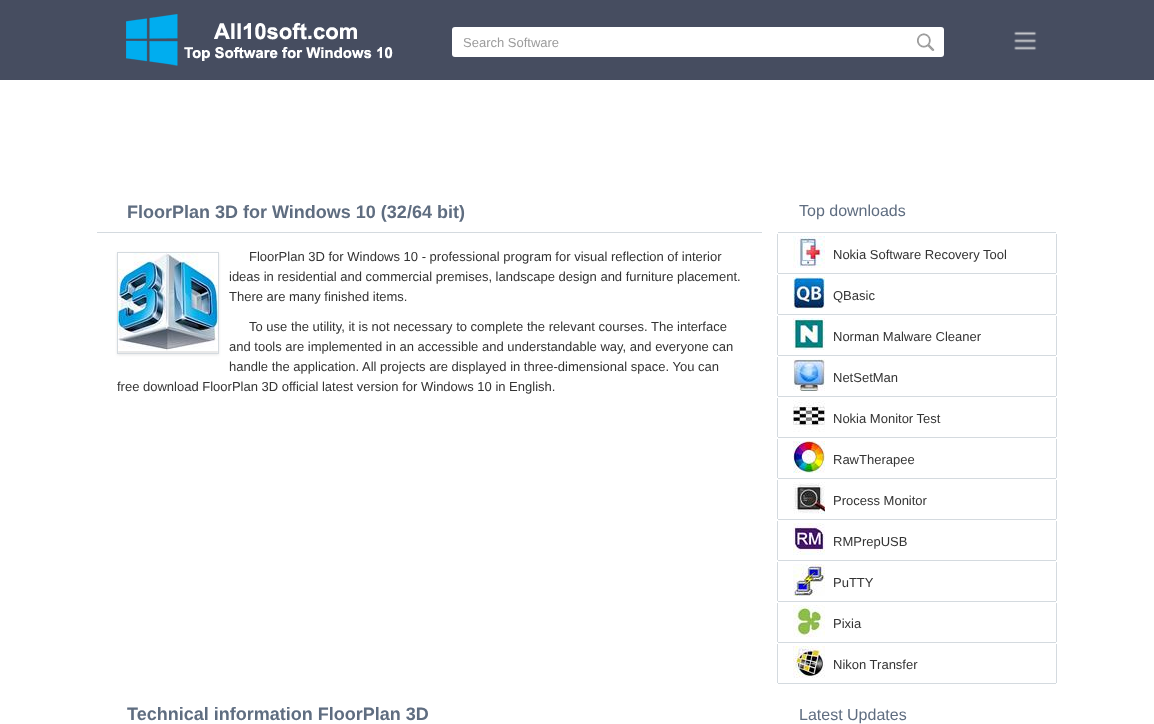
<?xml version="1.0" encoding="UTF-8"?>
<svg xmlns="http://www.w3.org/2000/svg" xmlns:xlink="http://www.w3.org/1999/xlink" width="1154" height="724">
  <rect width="100%" height="100%" fill="#ffffff" />
  <rect width="1154" height="80" fill="#464d60" />
  <image x="126" y="14" width="267" height="52" xlink:href="image1.png" />
  <rect x="452" y="27" width="492" height="30" rx="3" fill="#ffffff" />
  <image x="917" y="33" width="18" height="18" xlink:href="image2.png" />
  <image x="1014" y="31" width="23" height="19" xlink:href="image3.png" />
  <rect x="97" y="232" width="665" height="1" fill="#d4dadf" />
  <rect x="117" y="253" width="102" height="102" fill="#e9e9e9" filter="blur(1.5px)" />
  <rect x="117.5" y="252.5" width="101" height="101" fill="none" stroke="#d4dadf" />
  <image x="118" y="253" width="100" height="98" xlink:href="image4.png" />
  <rect x="778" y="232" width="278" height="1" fill="#d4dadf" />
  <rect x="1056" y="234" width="1" height="39" fill="#d4dadf" />
  <rect x="778" y="273" width="278" height="1" fill="#d4dadf" />
  <rect x="777" y="234" width="1" height="39" fill="#d4dadf" />
  <image x="793" y="236" width="32" height="32" xlink:href="image5.png" />
  <rect x="1056" y="275" width="1" height="39" fill="#d4dadf" />
  <rect x="778" y="314" width="278" height="1" fill="#d4dadf" />
  <rect x="777" y="275" width="1" height="39" fill="#d4dadf" />
  <image x="793" y="277" width="32" height="32" xlink:href="image6.png" />
  <rect x="1056" y="316" width="1" height="39" fill="#d4dadf" />
  <rect x="778" y="355" width="278" height="1" fill="#d4dadf" />
  <rect x="777" y="316" width="1" height="39" fill="#d4dadf" />
  <image x="793" y="318" width="32" height="32" xlink:href="image7.png" />
  <rect x="1056" y="357" width="1" height="39" fill="#d4dadf" />
  <rect x="778" y="396" width="278" height="1" fill="#d4dadf" />
  <rect x="777" y="357" width="1" height="39" fill="#d4dadf" />
  <image x="793" y="359" width="32" height="32" xlink:href="image8.png" />
  <rect x="1056" y="398" width="1" height="39" fill="#d4dadf" />
  <rect x="778" y="437" width="278" height="1" fill="#d4dadf" />
  <rect x="777" y="398" width="1" height="39" fill="#d4dadf" />
  <image x="793" y="400" width="32" height="32" xlink:href="image9.png" />
  <rect x="1056" y="439" width="1" height="39" fill="#d4dadf" />
  <rect x="778" y="478" width="278" height="1" fill="#d4dadf" />
  <rect x="777" y="439" width="1" height="39" fill="#d4dadf" />
  <image x="793" y="441" width="32" height="32" xlink:href="image10.png" />
  <rect x="1056" y="480" width="1" height="39" fill="#d4dadf" />
  <rect x="778" y="519" width="278" height="1" fill="#d4dadf" />
  <rect x="777" y="480" width="1" height="39" fill="#d4dadf" />
  <image x="793" y="482" width="32" height="32" xlink:href="image11.png" />
  <rect x="1056" y="521" width="1" height="39" fill="#d4dadf" />
  <rect x="778" y="560" width="278" height="1" fill="#d4dadf" />
  <rect x="777" y="521" width="1" height="39" fill="#d4dadf" />
  <image x="793" y="523" width="32" height="32" xlink:href="image12.png" />
  <rect x="1056" y="562" width="1" height="39" fill="#d4dadf" />
  <rect x="778" y="601" width="278" height="1" fill="#d4dadf" />
  <rect x="777" y="562" width="1" height="39" fill="#d4dadf" />
  <image x="793" y="564" width="32" height="32" xlink:href="image13.png" />
  <rect x="1056" y="603" width="1" height="39" fill="#d4dadf" />
  <rect x="778" y="642" width="278" height="1" fill="#d4dadf" />
  <rect x="777" y="603" width="1" height="39" fill="#d4dadf" />
  <image x="793" y="605" width="32" height="32" xlink:href="image14.png" />
  <rect x="1056" y="644" width="1" height="39" fill="#d4dadf" />
  <rect x="778" y="683" width="278" height="1" fill="#d4dadf" />
  <rect x="777" y="644" width="1" height="39" fill="#d4dadf" />
  <image x="793" y="646" width="32" height="32" xlink:href="image15.png" />
  <text x="463" y="47" style="font-family: Liberation Sans; font-size: 13px; fill: #9c9c9c">Search Software</text>
  <text x="127" y="218" style="font-family: Liberation Sans; font-size: 18px; font-weight: bold; fill: #5f6d80">FloorPlan 3D for Windows 10 (32/64 bit)</text>
  <text x="249" y="261" style="font-family: Liberation Sans; font-size: 13px; fill: #333333">FloorPlan 3D for Windows 10 - professional program for visual reflection of interior</text>
  <text x="229" y="281" style="font-family: Liberation Sans; font-size: 13px; fill: #333333">ideas in residential and commercial premises, landscape design and furniture placement.</text>
  <text x="229" y="301" style="font-family: Liberation Sans; font-size: 13px; fill: #333333">There are many finished items.</text>
  <text x="249" y="331" style="font-family: Liberation Sans; font-size: 13px; fill: #333333">To use the utility, it is not necessary to complete the relevant courses. The interface</text>
  <text x="229" y="351" style="font-family: Liberation Sans; font-size: 13px; fill: #333333">and tools are implemented in an accessible and understandable way, and everyone can</text>
  <text x="229" y="371" style="font-family: Liberation Sans; font-size: 13px; fill: #333333">handle the application. All projects are displayed in three-dimensional space. You can</text>
  <text x="117" y="391" style="font-family: Liberation Sans; font-size: 13px; fill: #333333">free download FloorPlan 3D official latest version for Windows 10 in English.</text>
  <text x="127" y="720" style="font-family: Liberation Sans; font-size: 18px; font-weight: bold; fill: #5f6d80">Technical information FloorPlan 3D</text>
  <text x="799" y="216" style="font-family: Liberation Sans; font-size: 16px; fill: #5f6d80">Top downloads</text>
  <text x="833" y="259" style="font-family: Liberation Sans; font-size: 13px; fill: #333333">Nokia Software Recovery Tool</text>
  <text x="833" y="300" style="font-family: Liberation Sans; font-size: 13px; fill: #333333">QBasic</text>
  <text x="833" y="341" style="font-family: Liberation Sans; font-size: 13px; fill: #333333">Norman Malware Cleaner</text>
  <text x="833" y="382" style="font-family: Liberation Sans; font-size: 13px; fill: #333333">NetSetMan</text>
  <text x="833" y="423" style="font-family: Liberation Sans; font-size: 13px; fill: #333333">Nokia Monitor Test</text>
  <text x="833" y="464" style="font-family: Liberation Sans; font-size: 13px; fill: #333333">RawTherapee</text>
  <text x="833" y="505" style="font-family: Liberation Sans; font-size: 13px; fill: #333333">Process Monitor</text>
  <text x="833" y="546" style="font-family: Liberation Sans; font-size: 13px; fill: #333333">RMPrepUSB</text>
  <text x="833" y="587" style="font-family: Liberation Sans; font-size: 13px; fill: #333333">PuTTY</text>
  <text x="833" y="628" style="font-family: Liberation Sans; font-size: 13px; fill: #333333">Pixia</text>
  <text x="833" y="669" style="font-family: Liberation Sans; font-size: 13px; fill: #333333">Nikon Transfer</text>
  <text x="799" y="720" style="font-family: Liberation Sans; font-size: 16px; fill: #5f6d80">Latest Updates</text>
</svg>
